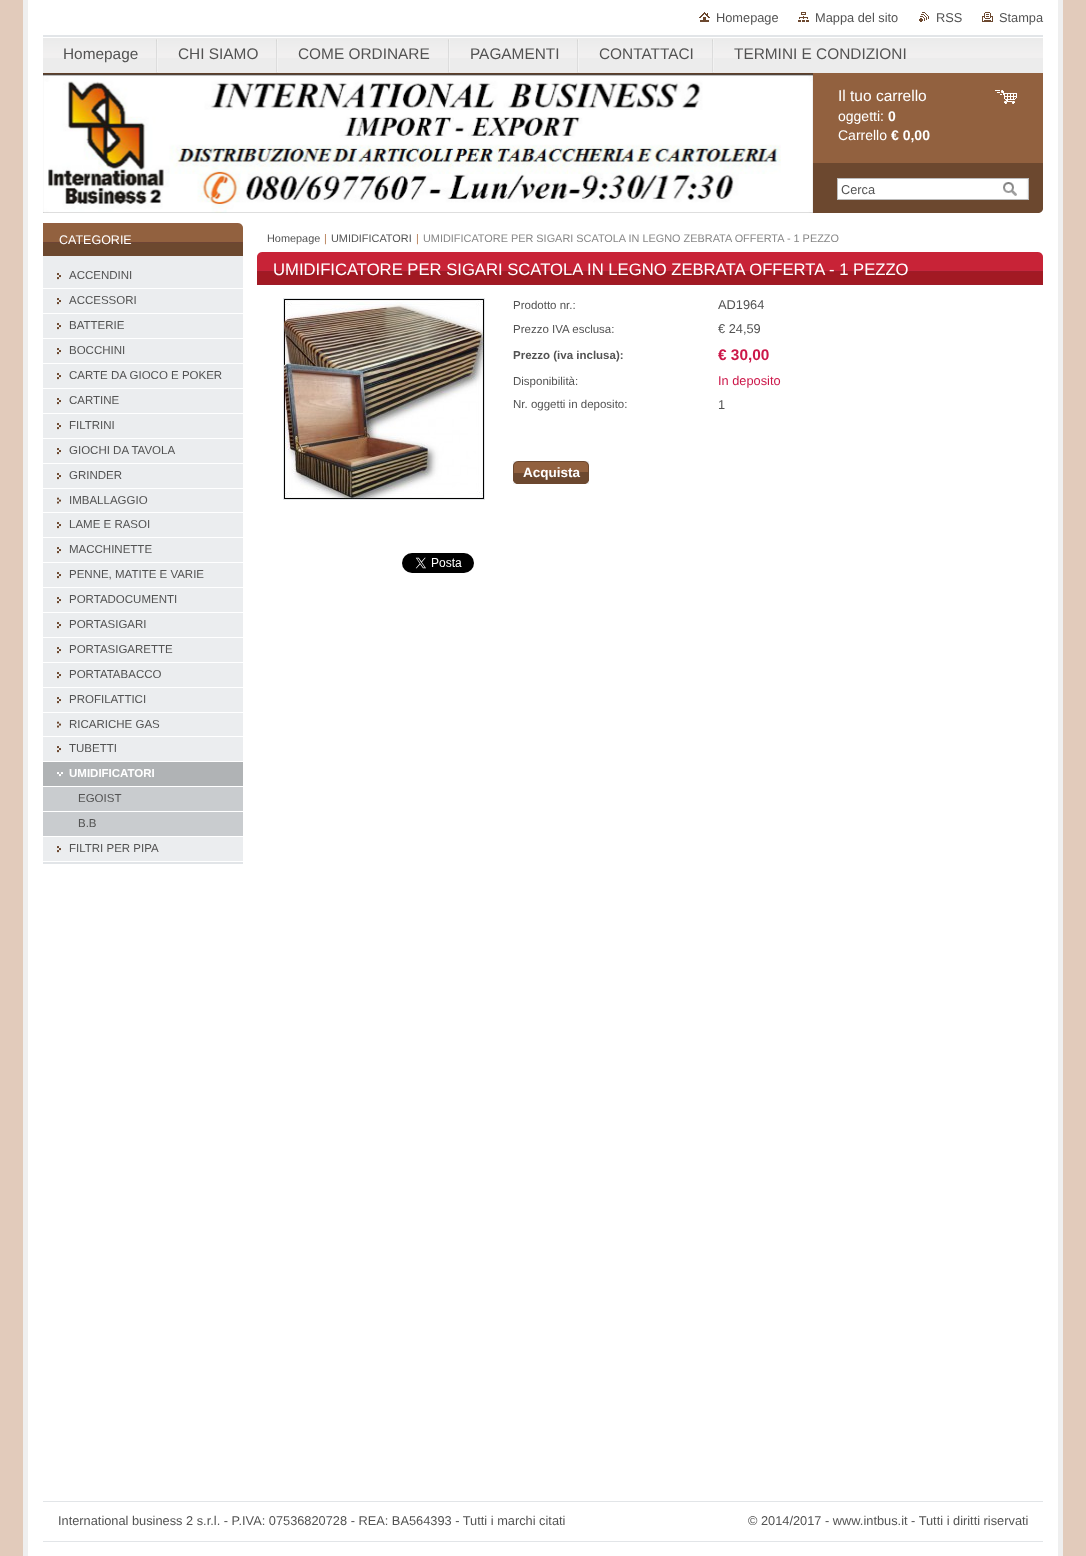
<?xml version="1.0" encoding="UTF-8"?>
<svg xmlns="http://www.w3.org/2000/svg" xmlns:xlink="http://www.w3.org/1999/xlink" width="1086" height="1556">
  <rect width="100%" height="100%" fill="#e2cbbb" />
  <rect x="28" width="1030" height="1556" fill="#ffffff" />
  <rect x="1058" width="5" height="1556" fill="#efefef" />
  <rect x="23" width="5" height="1556" fill="#efefef" />
  <image x="699" y="12" width="11" height="10" xlink:href="image1.png" />
  <image x="798" y="12" width="11" height="10" xlink:href="image2.png" />
  <image x="919" y="12" width="10" height="10" xlink:href="image3.png" />
  <image x="982" y="12" width="11" height="10" xlink:href="image4.png" />
  <rect x="43" y="58" width="1000" height="15" fill="#ececec" />
  <image x="43" y="35" width="1000" height="23" xlink:href="image5.png" />
  <image x="156" y="39" width="2" height="34" xlink:href="image6.png" />
  <image x="276" y="39" width="2" height="34" xlink:href="image6.png" />
  <image x="448" y="39" width="2" height="34" xlink:href="image6.png" />
  <image x="577" y="39" width="2" height="34" xlink:href="image6.png" />
  <image x="712" y="39" width="2" height="34" xlink:href="image6.png" />
  <rect x="43" y="73" width="770" height="2" fill="#6c482f" />
  <image x="43" y="73" width="770" height="140" xlink:href="image7.png" />
  <rect x="813" y="73" width="230" height="90" fill="#92613f" />
  <image x="995" y="90" width="22" height="14" xlink:href="image8.png" />
  <image x="813" y="163" width="230" height="50" xlink:href="image9.png" />
  <image x="1003" y="182" width="17" height="14" xlink:href="image10.png" />
  <rect x="43" y="862" width="200" height="2" fill="#e2e5e8" />
  <rect x="43" y="256" width="200" height="605" fill="#ebedef" />
  <rect x="43" y="243" width="200" height="13" fill="#6c482f" />
  <image x="43" y="223" width="200" height="20" xlink:href="image11.png" />
  <image x="57" y="273" width="4" height="7" xlink:href="image12.png" />
  <rect x="43" y="288" width="200" height="1" fill="#ffffff" />
  <image x="57" y="298" width="4" height="7" xlink:href="image12.png" />
  <rect x="43" y="313" width="200" height="1" fill="#ffffff" />
  <image x="57" y="323" width="4" height="7" xlink:href="image12.png" />
  <rect x="43" y="338" width="200" height="1" fill="#ffffff" />
  <image x="57" y="348" width="4" height="7" xlink:href="image12.png" />
  <rect x="43" y="363" width="200" height="1" fill="#ffffff" />
  <image x="57" y="373" width="4" height="7" xlink:href="image12.png" />
  <rect x="43" y="388" width="200" height="1" fill="#ffffff" />
  <image x="57" y="398" width="4" height="7" xlink:href="image12.png" />
  <rect x="43" y="413" width="200" height="1" fill="#ffffff" />
  <image x="57" y="423" width="4" height="7" xlink:href="image12.png" />
  <rect x="43" y="438" width="200" height="1" fill="#ffffff" />
  <image x="57" y="448" width="4" height="7" xlink:href="image12.png" />
  <rect x="43" y="463" width="200" height="1" fill="#ffffff" />
  <image x="57" y="473" width="4" height="7" xlink:href="image12.png" />
  <rect x="43" y="488" width="200" height="1" fill="#ffffff" />
  <image x="57" y="497" width="4" height="7" xlink:href="image13.png" />
  <rect x="43" y="512" width="200" height="1" fill="#ffffff" />
  <image x="57" y="522" width="4" height="7" xlink:href="image12.png" />
  <rect x="43" y="537" width="200" height="1" fill="#ffffff" />
  <image x="57" y="547" width="4" height="7" xlink:href="image12.png" />
  <rect x="43" y="562" width="200" height="1" fill="#ffffff" />
  <image x="57" y="572" width="4" height="7" xlink:href="image12.png" />
  <rect x="43" y="587" width="200" height="1" fill="#ffffff" />
  <image x="57" y="597" width="4" height="7" xlink:href="image12.png" />
  <rect x="43" y="612" width="200" height="1" fill="#ffffff" />
  <image x="57" y="622" width="4" height="7" xlink:href="image12.png" />
  <rect x="43" y="637" width="200" height="1" fill="#ffffff" />
  <image x="57" y="647" width="4" height="7" xlink:href="image12.png" />
  <rect x="43" y="662" width="200" height="1" fill="#ffffff" />
  <image x="57" y="672" width="4" height="7" xlink:href="image12.png" />
  <rect x="43" y="687" width="200" height="1" fill="#ffffff" />
  <image x="57" y="697" width="4" height="7" xlink:href="image12.png" />
  <rect x="43" y="712" width="200" height="1" fill="#ffffff" />
  <image x="57" y="721" width="4" height="7" xlink:href="image13.png" />
  <rect x="43" y="736" width="200" height="1" fill="#ffffff" />
  <image x="57" y="746" width="4" height="7" xlink:href="image12.png" />
  <rect x="43" y="761" width="200" height="1" fill="#ffffff" />
  <rect x="43" y="762" width="200" height="24" fill="#b0b3b5" />
  <image x="57" y="772" width="6" height="5" xlink:href="image14.png" />
  <rect x="43" y="786" width="200" height="1" fill="#ffffff" />
  <rect x="43" y="787" width="200" height="49" fill="#c9cccf" />
  <rect x="43" y="811" width="200" height="1" fill="#ffffff" />
  <rect x="43" y="836" width="200" height="1" fill="#ffffff" />
  <image x="57" y="846" width="4" height="7" xlink:href="image12.png" />
  <image x="257" y="252" width="786" height="33" xlink:href="image15.png" />
  <image x="1038" y="252" width="5" height="5" xlink:href="image16.png" />
  <rect x="283.5" y="298.5" width="201" height="201" fill="none" stroke="#e2e5e8" />
  <image x="284" y="299" width="200" height="200" xlink:href="image17.png" />
  <image x="513" y="461" width="71" height="12" xlink:href="image18.png" />
  <image x="584" y="461" width="5" height="11" xlink:href="image19.png" />
  <image x="513" y="473" width="57" height="11" xlink:href="image20.png" />
  <image x="569" y="472" width="20" height="12" xlink:href="image21.png" />
  <image x="402" y="553" width="72" height="20" xlink:href="image22.png" />
  <rect x="43" y="1501" width="1000" height="1" fill="#e2e5e8" />
  <rect x="43" y="1541" width="1000" height="1" fill="#e2e5e8" />
  <text x="716" y="22" style="font-family: Liberation Sans; font-size: 12.8px; fill: #535353">Homepage</text>
  <text x="815" y="22" style="font-family: Liberation Sans; font-size: 12.8px; fill: #535353">Mappa del sito</text>
  <text x="936" y="22" style="font-family: Liberation Sans; font-size: 12.8px; fill: #535353">RSS</text>
  <text x="999" y="22" style="font-family: Liberation Sans; font-size: 12.8px; fill: #535353">Stampa</text>
  <text x="63" y="59" style="font-family: Liberation Sans; font-size: 15.4px; fill: #535353">Homepage</text>
  <text x="178" y="59" style="font-family: Liberation Sans; font-size: 15.4px; fill: #535353">CHI SIAMO</text>
  <text x="298" y="59" style="font-family: Liberation Sans; font-size: 15.4px; fill: #535353">COME ORDINARE</text>
  <text x="470" y="59" style="font-family: Liberation Sans; font-size: 15.4px; fill: #535353">PAGAMENTI</text>
  <text x="599" y="59" style="font-family: Liberation Sans; font-size: 15.4px; fill: #535353">CONTATTACI</text>
  <text x="734" y="59" style="font-family: Liberation Sans; font-size: 15.4px; fill: #535353">TERMINI E CONDIZIONI</text>
  <text x="838" y="101" style="font-family: Liberation Sans; font-size: 15.5px; fill: #ffffff">Il tuo carrello</text>
  <text x="838" y="121" style="font-family: Liberation Sans; font-size: 14px; fill: #ffffff">oggetti:</text>
  <text x="888" y="121" style="font-family: Liberation Sans; font-size: 14px; font-weight: bold; fill: #ffffff">0</text>
  <text x="838" y="140" style="font-family: Liberation Sans; font-size: 14px; fill: #ffffff">Carrello</text>
  <text x="891" y="140" style="font-family: Liberation Sans; font-size: 14px; font-weight: bold; fill: #ffffff">€ 0,00</text>
  <text x="841" y="194" style="font-family: Liberation Sans; font-size: 12.8px; fill: #535353">Cerca</text>
  <text x="59" y="244" style="font-family: Liberation Sans; font-size: 12.5px; fill: #ffffff">CATEGORIE</text>
  <text x="69" y="279" style="font-family: Liberation Sans; font-size: 11.5px; fill: #535353">ACCENDINI</text>
  <text x="69" y="304" style="font-family: Liberation Sans; font-size: 11.5px; fill: #535353">ACCESSORI</text>
  <text x="69" y="329" style="font-family: Liberation Sans; font-size: 11.5px; fill: #535353">BATTERIE</text>
  <text x="69" y="354" style="font-family: Liberation Sans; font-size: 11.5px; fill: #535353">BOCCHINI</text>
  <text x="69" y="379" style="font-family: Liberation Sans; font-size: 11.5px; fill: #535353">CARTE DA GIOCO E POKER</text>
  <text x="69" y="404" style="font-family: Liberation Sans; font-size: 11.5px; fill: #535353">CARTINE</text>
  <text x="69" y="429" style="font-family: Liberation Sans; font-size: 11.5px; fill: #535353">FILTRINI</text>
  <text x="69" y="454" style="font-family: Liberation Sans; font-size: 11.5px; fill: #535353">GIOCHI DA TAVOLA</text>
  <text x="69" y="479" style="font-family: Liberation Sans; font-size: 11.5px; fill: #535353">GRINDER</text>
  <text x="69" y="504" style="font-family: Liberation Sans; font-size: 11.5px; fill: #535353">IMBALLAGGIO</text>
  <text x="69" y="528" style="font-family: Liberation Sans; font-size: 11.5px; fill: #535353">LAME E RASOI</text>
  <text x="69" y="553" style="font-family: Liberation Sans; font-size: 11.5px; fill: #535353">MACCHINETTE</text>
  <text x="69" y="578" style="font-family: Liberation Sans; font-size: 11.5px; fill: #535353">PENNE, MATITE E VARIE</text>
  <text x="69" y="603" style="font-family: Liberation Sans; font-size: 11.5px; fill: #535353">PORTADOCUMENTI</text>
  <text x="69" y="628" style="font-family: Liberation Sans; font-size: 11.5px; fill: #535353">PORTASIGARI</text>
  <text x="69" y="653" style="font-family: Liberation Sans; font-size: 11.5px; fill: #535353">PORTASIGARETTE</text>
  <text x="69" y="678" style="font-family: Liberation Sans; font-size: 11.5px; fill: #535353">PORTATABACCO</text>
  <text x="69" y="703" style="font-family: Liberation Sans; font-size: 11.5px; fill: #535353">PROFILATTICI</text>
  <text x="69" y="728" style="font-family: Liberation Sans; font-size: 11.5px; fill: #535353">RICARICHE GAS</text>
  <text x="69" y="752" style="font-family: Liberation Sans; font-size: 11.5px; fill: #535353">TUBETTI</text>
  <text x="69" y="777" style="font-family: Liberation Sans; font-size: 11.5px; font-weight: bold; fill: #ffffff">UMIDIFICATORI</text>
  <text x="78" y="802" style="font-family: Liberation Sans; font-size: 11.5px; fill: #535353">EGOIST</text>
  <text x="78" y="827" style="font-family: Liberation Sans; font-size: 11.5px; fill: #535353">B.B</text>
  <text x="69" y="852" style="font-family: Liberation Sans; font-size: 11.5px; fill: #535353">FILTRI PER PIPA</text>
  <text x="267" y="242" style="font-family: Liberation Sans; font-size: 10.9px; fill: #535353">Homepage</text>
  <text x="324" y="242" style="font-family: Liberation Sans; font-size: 10.9px; fill: #b77e56">|</text>
  <text x="331" y="242" style="font-family: Liberation Sans; font-size: 10.9px; fill: #535353">UMIDIFICATORI</text>
  <text x="416" y="242" style="font-family: Liberation Sans; font-size: 10.9px; fill: #b77e56">|</text>
  <text x="423" y="242" style="font-family: Liberation Sans; font-size: 10.9px; fill: #878787">UMIDIFICATORE PER SIGARI SCATOLA IN LEGNO ZEBRATA OFFERTA - 1 PEZZO</text>
  <text x="273" y="275" style="font-family: Liberation Sans; font-size: 16.65px; fill: #ffffff">UMIDIFICATORE PER SIGARI SCATOLA IN LEGNO ZEBRATA OFFERTA - 1 PEZZO</text>
  <text x="513" y="309" style="font-family: Liberation Sans; font-size: 11.5px; fill: #535353">Prodotto nr.:</text>
  <text x="718" y="309" style="font-family: Liberation Sans; font-size: 12.8px; fill: #535353">AD1964</text>
  <text x="513" y="333" style="font-family: Liberation Sans; font-size: 11.5px; fill: #535353">Prezzo IVA esclusa:</text>
  <text x="718" y="333" style="font-family: Liberation Sans; font-size: 12.8px; fill: #535353">€ 24,59</text>
  <text x="513" y="359" style="font-family: Liberation Sans; font-size: 11.5px; font-weight: bold; fill: #535353">Prezzo (iva inclusa):</text>
  <text x="718" y="360" style="font-family: Liberation Sans; font-size: 15.4px; font-weight: bold; fill: #cc1749">€ 30,00</text>
  <text x="513" y="385" style="font-family: Liberation Sans; font-size: 11.5px; fill: #535353">Disponibilità:</text>
  <text x="718" y="385" style="font-family: Liberation Sans; font-size: 12.8px; fill: #cc1749">In deposito</text>
  <text x="513" y="408" style="font-family: Liberation Sans; font-size: 11.5px; fill: #535353">Nr. oggetti in deposito:</text>
  <text x="718" y="409" style="font-family: Liberation Sans; font-size: 12.8px; fill: #535353">1</text>
  <text x="523" y="477" style="font-family: Liberation Sans; font-size: 13.5px; font-weight: bold; fill: #ffffff">Acquista</text>
  <text x="58" y="1525" style="font-family: Liberation Sans; font-size: 12.8px; fill: #535353">International business 2 s.r.l. - P.IVA: 07536820728 - REA: BA564393 - Tutti i marchi citati</text>
  <text x="748" y="1525" style="font-family: Liberation Sans; font-size: 12.8px; fill: #535353">© 2014/2017 - www.intbus.it - Tutti i diritti riservati</text>
</svg>
